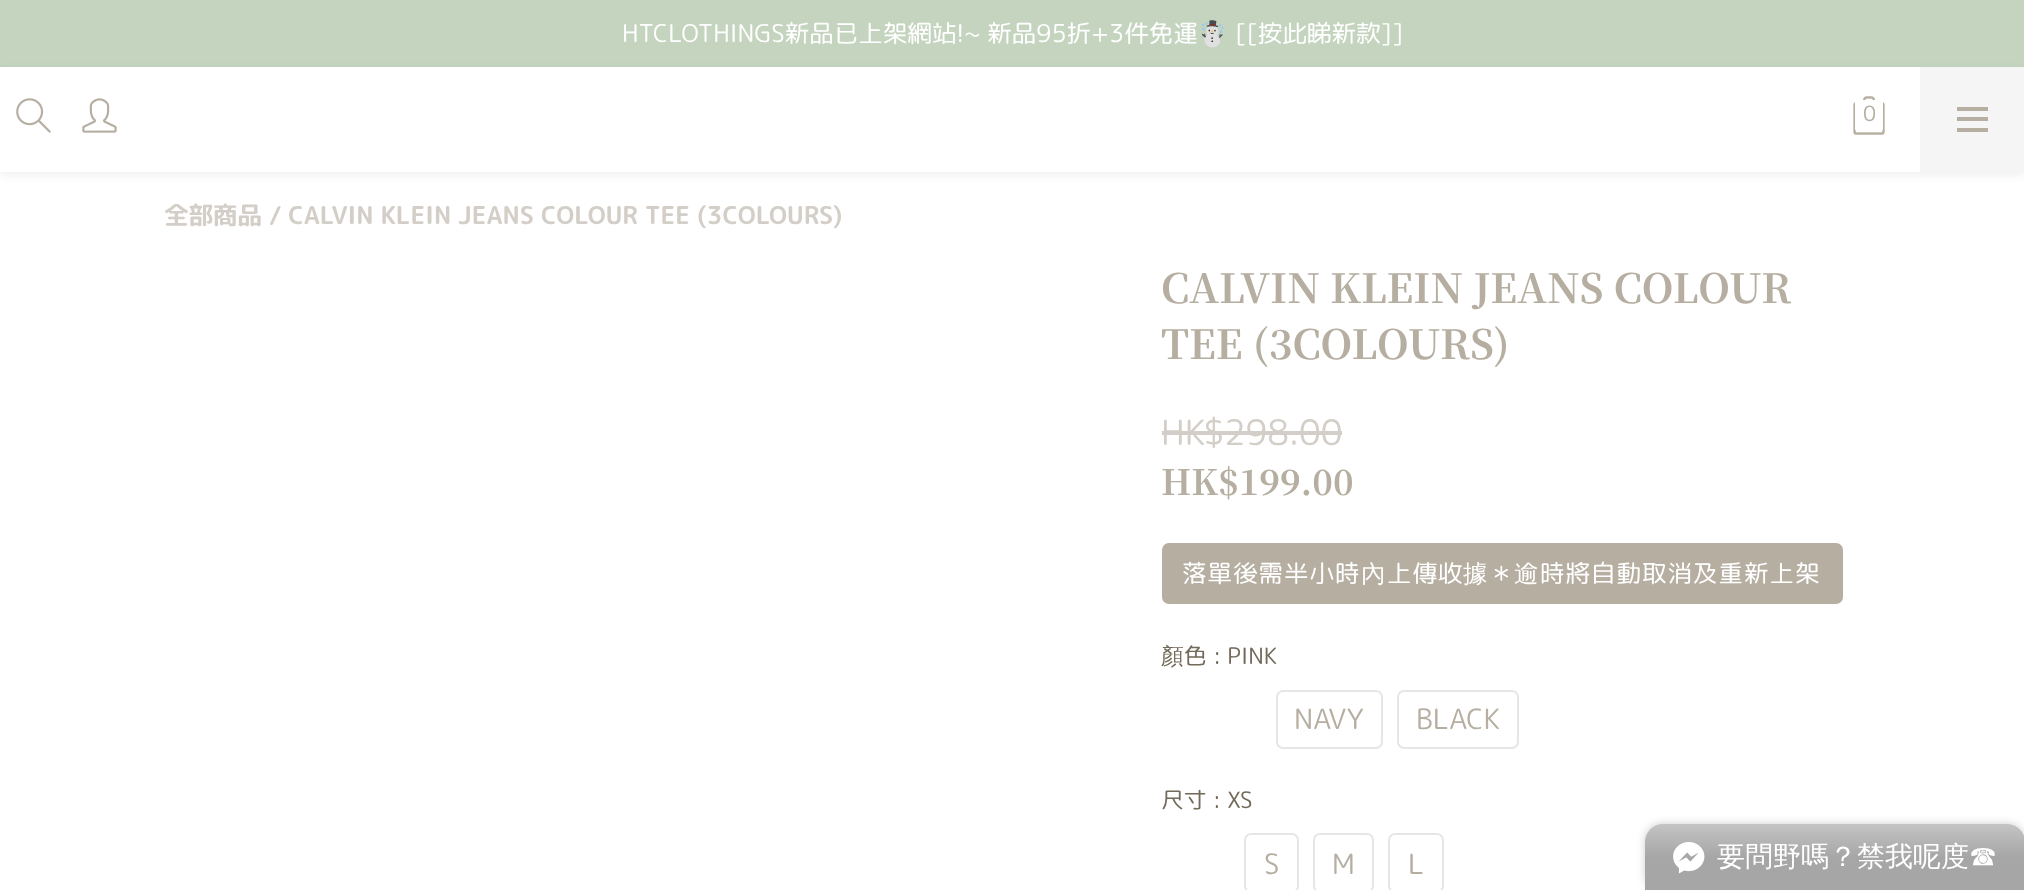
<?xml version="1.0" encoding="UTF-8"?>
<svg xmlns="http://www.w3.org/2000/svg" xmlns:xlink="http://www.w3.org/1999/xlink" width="2024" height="890">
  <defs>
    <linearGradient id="g1" gradientUnits="userSpaceOnUse" x1="1835" y1="824" x2="1835" y2="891"><stop offset="0" stop-color="#c4c4c4" /><stop offset="0.5" stop-color="#a6a6a6" /></linearGradient>
  </defs>
  <rect width="100%" height="100%" fill="#ffffff" />
  <rect width="2024" height="67" fill="#c4d4bf" />
  <rect y="70" width="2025" height="105" fill="#000000" fill-opacity="0.06" filter="blur(5px)" />
  <rect y="67" width="1920" height="105" fill="#ffffff" />
  <image x="16" y="98" width="35" height="35" xlink:href="image1.png" />
  <image x="82" y="98" width="35" height="35" xlink:href="image2.png" />
  <image x="1853" y="96" width="32" height="39" xlink:href="image3.png" />
  <rect x="1855" y="100" width="28" height="30" fill="#ffffff" />
  <rect x="1920" y="67" width="104" height="105" fill="#f5f5f5" />
  <rect x="1957" y="117" width="31" height="4" fill="#b5aea1" />
  <rect x="1957" y="107" width="31" height="4" fill="#b5aea1" />
  <rect x="1957" y="128" width="31" height="4" fill="#b5aea1" />
  <rect x="1162" y="431" width="180" height="4" fill="#d3cec7" />
  <rect x="1162" y="543" width="681" height="61" rx="7" fill="#b5aea1" />
  <rect x="1277" y="691" width="105" height="57" rx="6" fill="none" stroke="#e6e6e6" stroke-width="2" />
  <rect x="1398" y="691" width="120" height="57" rx="6" fill="none" stroke="#e6e6e6" stroke-width="2" />
  <rect x="1245" y="834" width="53" height="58" rx="6" fill="none" stroke="#e6e6e6" stroke-width="2" />
  <rect x="1314" y="834" width="59" height="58" rx="6" fill="none" stroke="#e6e6e6" stroke-width="2" />
  <rect x="1389" y="834" width="54" height="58" rx="6" fill="none" stroke="#e6e6e6" stroke-width="2" />
  <rect x="1645" y="824" width="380" height="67" rx="18" fill="#000000" fill-opacity="0.2" filter="blur(4.5px)" />
  <path d="M 1663 824 h 344 c 10 0 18 8 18 18 v 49 h -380 v -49 c 0 -10 8 -18 18 -18 z" fill="url(#g1)" />
  <image x="1673" y="842" width="32" height="32" xlink:href="image4.png" />
  <text x="622" y="42" style="font-family: 'Rounded Mplus 1c'; font-size: 24.5px; fill: #ffffff">HTCLOTHINGS新品已上架網站!~ 新品95折+3件免運</text>
  <text x="1197" y="42" style="font-family: Noto Color Emoji; font-size: 24.5px; fill: #ffffff">☃️</text>
  <text x="1235" y="42" style="font-family: 'Rounded Mplus 1c'; font-size: 24.5px; fill: #ffffff">[[按此睇新款]]</text>
  <text x="1863" y="121" style="font-family: 'Rounded Mplus 1c'; font-size: 21px; fill: #b5aea1">0</text>
  <text x="164" y="224" style="font-family: 'Rounded Mplus 1c Bold'; font-size: 24.5px; font-weight: bold; fill: #d3cec7">全部商品 / CALVIN KLEIN JEANS COLOUR TEE (3COLOURS)</text>
  <text x="1161" y="303" style="font-family: Noto Serif TC; font-size: 40.25px; font-weight: bold; fill: #b5aea1">CALVIN KLEIN JEANS COLOUR</text>
  <text x="1161" y="359" style="font-family: Noto Serif TC; font-size: 40.25px; font-weight: bold; fill: #b5aea1">TEE (3COLOURS)</text>
  <text x="1161" y="445" style="font-family: 'Rounded Mplus 1c'; font-size: 35px; fill: #d3cec7">HK$298.00</text>
  <text x="1161" y="495" style="font-family: Noto Serif TC; font-size: 35px; font-weight: bold; fill: #b5aea1">HK$199.00</text>
  <text x="1182" y="582" style="font-family: 'Rounded Mplus 1c'; font-size: 24.5px; letter-spacing: 1px; fill: #ffffff">落單後需半小時</text>
  <text x="1361" y="582" style="font-family: WenQuanYi Zen Hei; font-size: 24.5px; font-weight: 500; letter-spacing: 1px; fill: #ffffff">內</text>
  <text x="1387" y="582" style="font-family: 'Rounded Mplus 1c'; font-size: 24.5px; letter-spacing: 1px; fill: #ffffff">上傳收</text>
  <text x="1463" y="582" style="font-family: WenQuanYi Zen Hei; font-size: 24.5px; font-weight: 500; letter-spacing: 1px; fill: #ffffff">據</text>
  <text x="1489" y="582" style="font-family: 'Rounded Mplus 1c'; font-size: 24.5px; letter-spacing: 1px; fill: #ffffff">＊</text>
  <text x="1514" y="582" style="font-family: WenQuanYi Zen Hei; font-size: 24.5px; font-weight: 500; letter-spacing: 1px; fill: #ffffff">逾</text>
  <text x="1540" y="582" style="font-family: 'Rounded Mplus 1c'; font-size: 24.5px; letter-spacing: 1px; fill: #ffffff">時將自動取消及重新上架</text>
  <text x="1161" y="664" style="font-family: WenQuanYi Zen Hei; font-size: 22.75px; font-weight: 500; fill: #726a5a">顏</text>
  <text x="1184" y="664" style="font-family: 'Rounded Mplus 1c'; font-size: 22.75px; fill: #726a5a">色 : PINK</text>
  <text x="1294" y="729" style="font-family: 'Rounded Mplus 1c'; font-size: 28px; fill: #b5aea1">NAVY</text>
  <text x="1416" y="729" style="font-family: 'Rounded Mplus 1c'; font-size: 28px; fill: #b5aea1">BLACK</text>
  <text x="1161" y="808" style="font-family: 'Rounded Mplus 1c'; font-size: 22.75px; fill: #726a5a">尺寸 : XS</text>
  <text x="1264" y="874" style="font-family: 'Rounded Mplus 1c'; font-size: 28px; fill: #b5aea1">S</text>
  <text x="1332" y="874" style="font-family: 'Rounded Mplus 1c'; font-size: 28px; fill: #b5aea1">M</text>
  <text x="1408" y="874" style="font-family: 'Rounded Mplus 1c'; font-size: 28px; fill: #b5aea1">L</text>
  <text x="1717" y="866" style="font-family: WenQuanYi Zen Hei; font-size: 28px; font-weight: 500; fill: #ffffff">要問野嗎？禁我呢度☎</text>
</svg>
